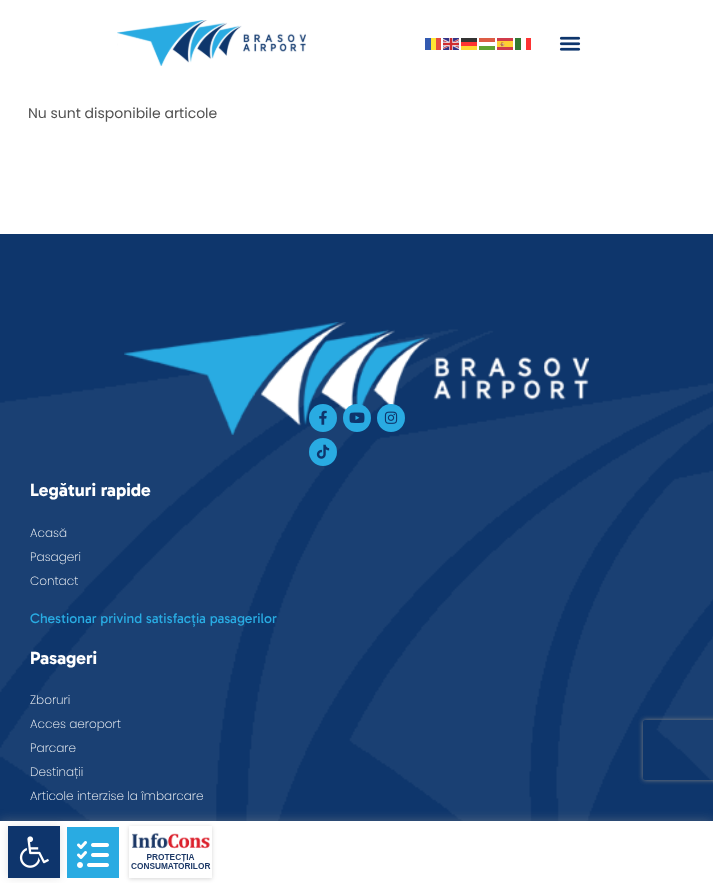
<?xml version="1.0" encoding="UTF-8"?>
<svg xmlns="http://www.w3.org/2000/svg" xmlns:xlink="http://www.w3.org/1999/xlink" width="713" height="883">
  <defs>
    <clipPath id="clip1"><path d="M 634 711 h 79 v 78 h -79 z m 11 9 h 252 c 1 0 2 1 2 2 v 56 c 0 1 -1 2 -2 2 h -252 c -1 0 -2 -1 -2 -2 v -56 c 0 -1 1 -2 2 -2 z" clip-rule="evenodd" /></clipPath>
    <clipPath id="clip2"><path d="M 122 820 h 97 v 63 h -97 z m 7 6 h 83 v 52 h -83 z" clip-rule="evenodd" /></clipPath>
  </defs>
  <rect width="100%" height="100%" fill="#ffffff" />
  <image x="117" y="20" width="189" height="46" xlink:href="image1.png" />
  <rect x="425" y="38" width="6" height="12" fill="#335ab0" />
  <rect x="431" y="38" width="5" height="12" fill="#ffe533" />
  <rect x="436" y="38" width="5" height="12" fill="#e54d40" />
  <image x="443" y="38" width="16" height="12" xlink:href="image2.png" />
  <rect x="461" y="38" width="16" height="4" fill="#333333" />
  <rect x="479" y="38" width="16" height="4" fill="#dd5d45" />
  <image x="497" y="38" width="16" height="12" xlink:href="image3.png" />
  <rect x="515" y="38" width="6" height="12" fill="#337933" />
  <rect x="526" y="38" width="5" height="12" fill="#fd3333" />
  <rect x="461" y="42" width="16" height="4" fill="#ff3333" />
  <rect x="461" y="46" width="16" height="4" fill="#ffd633" />
  <rect x="479" y="46" width="16" height="4" fill="#60a433" />
  <image x="559" y="36" width="22" height="15" xlink:href="image4.png" />
  <rect y="234" width="713" height="95" fill="#0e366c" />
  <image x="0" y="329" width="713" height="492" xlink:href="image5.png" />
  <image x="124" y="322" width="465" height="113" xlink:href="image6.png" />
  <circle cx="323" cy="418" r="14" fill="#29abe2" />
  <image x="319" y="410" width="8" height="15" xlink:href="image7.png" />
  <circle cx="357" cy="418" r="14" fill="#29abe2" />
  <image x="349" y="412" width="16" height="11" xlink:href="image8.png" />
  <circle cx="391" cy="418" r="14" fill="#29abe2" />
  <image x="384" y="411" width="14" height="13" xlink:href="image9.png" />
  <circle cx="323" cy="452" r="14" fill="#29abe2" />
  <image x="316" y="444" width="14" height="15" xlink:href="image10.png" />
  <rect y="821" width="713" height="62" fill="#8e8e8e" fill-opacity="0.5" filter="blur(5.5px)" />
  <rect y="821" width="713" height="62" fill="#ffffff" />
  <g clip-path="url(#clip1)">
    <rect x="643" y="720" width="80" height="60" rx="2" fill="#808080" filter="blur(2.5px)" />
  </g>
  <rect x="8" y="826" width="52" height="52" fill="#000000" fill-opacity="0.1" filter="blur(5px)" />
  <rect x="8" y="826" width="52" height="52" fill="#0e356c" />
  <image x="19" y="836" width="30" height="32" xlink:href="image11.png" />
  <rect x="67" y="827" width="52" height="51" fill="#29abe2" />
  <image x="77" y="841" width="32" height="27" xlink:href="image12.png" />
  <g clip-path="url(#clip2)">
    <rect x="129" y="827" width="83" height="52" fill="#000000" fill-opacity="0.16" filter="blur(2px)" />
  </g>
  <image x="131" y="832" width="80" height="37" xlink:href="image13.png" />
  <text x="28" y="118" style="font-family: Poppins; font-size: 14px; fill: #525252">Nu sunt disponibile articole</text>
  <text x="30" y="496" style="font-family: Gabarito; font-size: 18px; font-weight: bold; fill: #ffffff">Legături rapide</text>
  <text x="30" y="537" style="font-family: Poppins; font-size: 12px; font-weight: 200; fill: #ffffff">Acasă</text>
  <text x="30" y="561" style="font-family: Poppins; font-size: 12px; font-weight: 200; fill: #ffffff">Pasageri</text>
  <text x="30" y="585" style="font-family: Poppins; font-size: 12px; font-weight: 200; fill: #ffffff">Contact</text>
  <text x="30" y="623" style="font-family: Gabarito; font-size: 14px; fill: #29abe2">Chestionar privind satisfacția pasagerilor</text>
  <text x="30" y="664" style="font-family: Gabarito; font-size: 18px; font-weight: bold; fill: #ffffff">Pasageri</text>
  <text x="30" y="704" style="font-family: Poppins; font-size: 12px; font-weight: 200; fill: #ffffff">Zboruri</text>
  <text x="30" y="728" style="font-family: Poppins; font-size: 12px; font-weight: 200; fill: #ffffff">Acces aeroport</text>
  <text x="30" y="752" style="font-family: Poppins; font-size: 12px; font-weight: 200; fill: #ffffff">Parcare</text>
  <text x="30" y="776" style="font-family: Poppins; font-size: 12px; font-weight: 200; fill: #ffffff">Destinații</text>
  <text x="30" y="800" style="font-family: Poppins; font-size: 12px; font-weight: 200; fill: #ffffff">Articole interzise la îmbarcare</text>
</svg>
